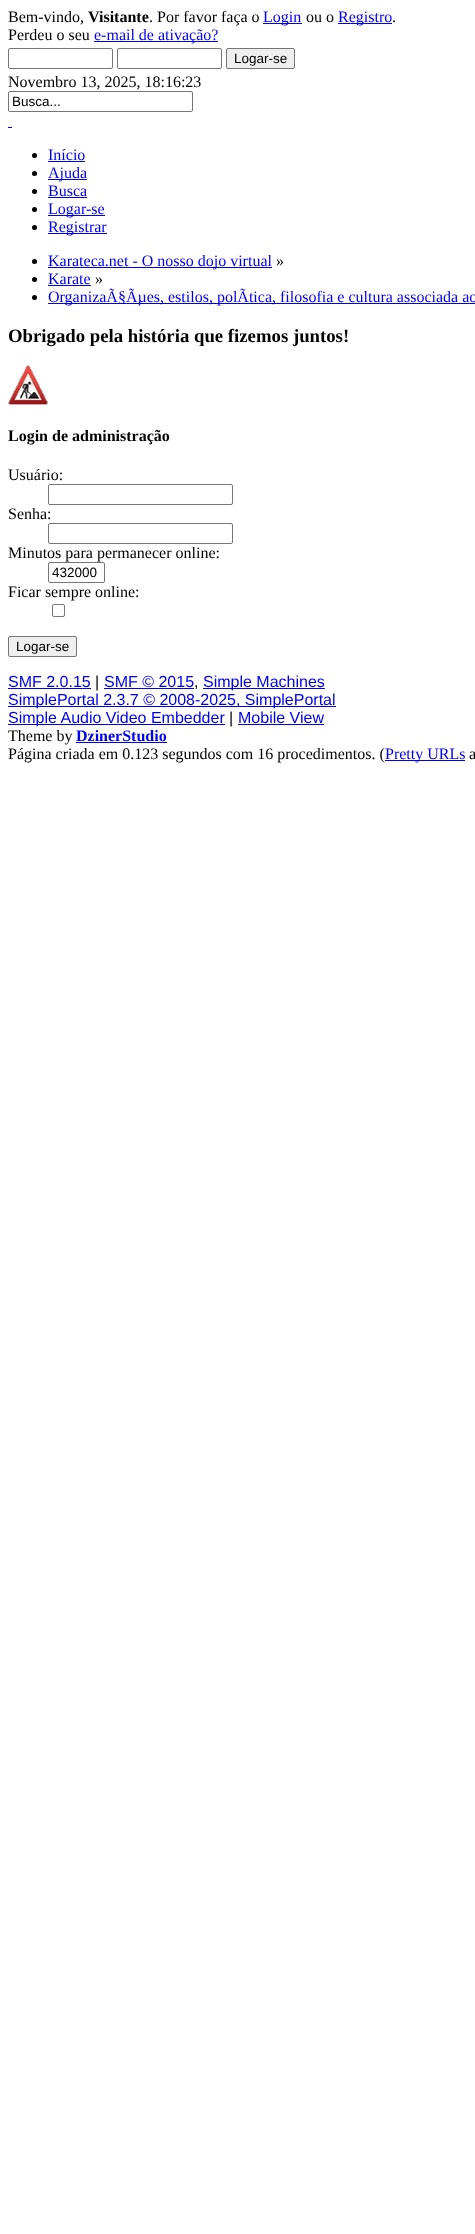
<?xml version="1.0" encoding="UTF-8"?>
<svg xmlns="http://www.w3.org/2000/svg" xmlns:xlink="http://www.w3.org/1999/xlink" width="475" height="2234">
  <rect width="100%" height="100%" fill="#ffffff" />
  <rect x="263" y="23" width="39" height="1" fill="#0000ee" />
  <rect x="338" y="23" width="54" height="1" fill="#0000ee" />
  <rect x="94" y="41" width="124" height="1" fill="#0000ee" />
  <rect x="8.5" y="48.5" width="104" height="20" rx="1.5" fill="none" stroke="#767676" />
  <rect x="117.5" y="48.5" width="104" height="20" rx="1.5" fill="none" stroke="#767676" />
  <rect x="226.5" y="48.5" width="68" height="20" rx="1.5" fill="#efefef" stroke="#767676" />
  <rect x="8.5" y="91.5" width="184" height="20" rx="1.5" fill="none" stroke="#767676" />
  <rect x="8" y="127" width="4" height="1" fill="#0000ee" />
  <circle cx="34.5" cy="155.5" r="2.5" fill="#000000" />
  <rect x="48" y="161" width="37" height="1" fill="#0000ee" />
  <circle cx="34.5" cy="173.5" r="2.5" fill="#000000" />
  <rect x="48" y="179" width="39" height="1" fill="#0000ee" />
  <circle cx="34.5" cy="191.5" r="2.5" fill="#000000" />
  <rect x="48" y="197" width="39" height="1" fill="#0000ee" />
  <circle cx="34.5" cy="209.5" r="2.5" fill="#000000" />
  <rect x="48" y="215" width="57" height="1" fill="#0000ee" />
  <circle cx="34.5" cy="227.5" r="2.5" fill="#000000" />
  <rect x="48" y="233" width="59" height="1" fill="#0000ee" />
  <circle cx="34.5" cy="261.5" r="2.5" fill="#000000" />
  <rect x="48" y="267" width="224" height="1" fill="#0000ee" />
  <circle cx="34.5" cy="279.5" r="2.5" fill="#000000" />
  <rect x="48" y="285" width="43" height="1" fill="#0000ee" />
  <circle cx="34.5" cy="297.5" r="2.5" fill="#000000" />
  <rect x="48" y="303" width="427" height="1" fill="#0000ee" />
  <image x="8" y="365" width="40" height="40" xlink:href="image1.png" />
  <rect x="48.5" y="484.5" width="184" height="20" rx="1.5" fill="none" stroke="#767676" />
  <rect x="48.5" y="523.5" width="184" height="20" rx="1.5" fill="none" stroke="#767676" />
  <rect x="48.5" y="562.5" width="56" height="20" rx="1.5" fill="none" stroke="#767676" />
  <rect x="52.5" y="604.5" width="12" height="12" rx="1.5" fill="none" stroke="#767676" />
  <rect x="8.5" y="636.5" width="68" height="20" rx="1.5" fill="#efefef" stroke="#767676" />
  <rect x="8" y="688" width="83" height="1" fill="#0000ee" />
  <rect x="104" y="688" width="90" height="1" fill="#0000ee" />
  <rect x="203" y="688" width="122" height="1" fill="#0000ee" />
  <rect x="8" y="706" width="328" height="1" fill="#0000ee" />
  <rect x="8" y="724" width="217" height="1" fill="#0000ee" />
  <rect x="238" y="724" width="86" height="1" fill="#0000ee" />
  <rect x="76" y="742" width="91" height="1" fill="#0000ee" />
  <rect x="385" y="760" width="80" height="1" fill="#0000ee" />
  <text x="8" y="22" style="font-family: Liberation Serif; font-size: 16px; fill: #000000">Bem-vindo,</text>
  <text x="88" y="22" style="font-family: Liberation Serif; font-size: 16px; font-weight: bold; fill: #000000">Visitante</text>
  <text x="149" y="22" style="font-family: Liberation Serif; font-size: 16px; fill: #000000">. Por favor faça o</text>
  <text x="263" y="22" style="font-family: Liberation Serif; font-size: 16px; fill: #0000ee">Login</text>
  <text x="306" y="22" style="font-family: Liberation Serif; font-size: 16px; fill: #000000">ou o</text>
  <text x="338" y="22" style="font-family: Liberation Serif; font-size: 16px; fill: #0000ee">Registro</text>
  <text x="392" y="22" style="font-family: Liberation Serif; font-size: 16px; fill: #000000">.</text>
  <text x="8" y="40" style="font-family: Liberation Serif; font-size: 16px; fill: #000000">Perdeu o seu</text>
  <text x="94" y="40" style="font-family: Liberation Serif; font-size: 16px; fill: #0000ee">e-mail de ativação?</text>
  <text x="234" y="63" style="font-family: Liberation Sans; font-size: 13.5px; fill: #000000">Logar-se</text>
  <text x="8" y="87" style="font-family: Liberation Serif; font-size: 16px; fill: #000000">Novembro 13, 2025, 18:16:23</text>
  <text x="12" y="106" style="font-family: Liberation Sans; font-size: 13.5px; fill: #000000">Busca...</text>
  <text x="48" y="160" style="font-family: Liberation Serif; font-size: 16px; fill: #0000ee">Início</text>
  <text x="48" y="178" style="font-family: Liberation Serif; font-size: 16px; fill: #0000ee">Ajuda</text>
  <text x="48" y="196" style="font-family: Liberation Serif; font-size: 16px; fill: #0000ee">Busca</text>
  <text x="48" y="214" style="font-family: Liberation Serif; font-size: 16px; fill: #0000ee">Logar-se</text>
  <text x="48" y="232" style="font-family: Liberation Serif; font-size: 16px; fill: #0000ee">Registrar</text>
  <text x="48" y="266" style="font-family: Liberation Serif; font-size: 16px; fill: #0000ee">Karateca.net - O nosso dojo virtual</text>
  <text x="276" y="266" style="font-family: Liberation Serif; font-size: 16px; fill: #000000">»</text>
  <text x="48" y="284" style="font-family: Liberation Serif; font-size: 16px; fill: #0000ee">Karate</text>
  <text x="95" y="284" style="font-family: Liberation Serif; font-size: 16px; fill: #000000">»</text>
  <text x="48" y="302" style="font-family: Liberation Serif; font-size: 16px; fill: #0000ee">OrganizaÃ§Ãµes, estilos, polÃtica, filosofia e cultura associada ao</text>
  <text x="8" y="342" style="font-family: Liberation Serif; font-size: 18.75px; font-weight: bold; fill: #000000">Obrigado pela história que fizemos juntos!</text>
  <text x="8" y="441" style="font-family: Liberation Serif; font-size: 16px; font-weight: bold; fill: #000000">Login de administração</text>
  <text x="8" y="480" style="font-family: Liberation Serif; font-size: 16px; fill: #000000">Usuário:</text>
  <text x="8" y="519" style="font-family: Liberation Serif; font-size: 16px; fill: #000000">Senha:</text>
  <text x="8" y="558" style="font-family: Liberation Serif; font-size: 16px; fill: #000000">Minutos para permanecer online:</text>
  <text x="52" y="577" style="font-family: Liberation Sans; font-size: 13.5px; fill: #000000">432000</text>
  <text x="8" y="597" style="font-family: Liberation Serif; font-size: 16px; fill: #000000">Ficar sempre online:</text>
  <text x="16" y="651" style="font-family: Liberation Sans; font-size: 13.5px; fill: #000000">Logar-se</text>
  <text x="8" y="687" style="font-family: Liberation Sans; font-size: 16px; fill: #0000ee">SMF 2.0.15</text>
  <text x="95" y="687" style="font-family: Liberation Sans; font-size: 16px; fill: #000000">|</text>
  <text x="104" y="687" style="font-family: Liberation Sans; font-size: 16px; fill: #0000ee">SMF © 2015</text>
  <text x="194" y="687" style="font-family: Liberation Sans; font-size: 16px; fill: #000000">,</text>
  <text x="203" y="687" style="font-family: Liberation Sans; font-size: 16px; fill: #0000ee">Simple Machines</text>
  <text x="8" y="705" style="font-family: Liberation Sans; font-size: 16px; fill: #0000ee">SimplePortal 2.3.7 © 2008-2025, SimplePortal</text>
  <text x="8" y="723" style="font-family: Liberation Sans; font-size: 16px; fill: #0000ee">Simple Audio Video Embedder</text>
  <text x="229" y="723" style="font-family: Liberation Sans; font-size: 16px; fill: #000000">|</text>
  <text x="238" y="723" style="font-family: Liberation Sans; font-size: 16px; fill: #0000ee">Mobile View</text>
  <text x="8" y="741" style="font-family: Liberation Serif; font-size: 16px; fill: #000000">Theme by</text>
  <text x="76" y="741" style="font-family: Liberation Serif; font-size: 16px; font-weight: bold; fill: #0000ee">DzinerStudio</text>
  <text x="8" y="759" style="font-family: Liberation Serif; font-size: 16px; fill: #000000">Página criada em 0.123 segundos com 16 procedimentos. (</text>
  <text x="385" y="759" style="font-family: Liberation Serif; font-size: 16px; fill: #0000ee">Pretty URLs</text>
  <text x="469" y="759" style="font-family: Liberation Serif; font-size: 16px; fill: #000000">a</text>
</svg>
